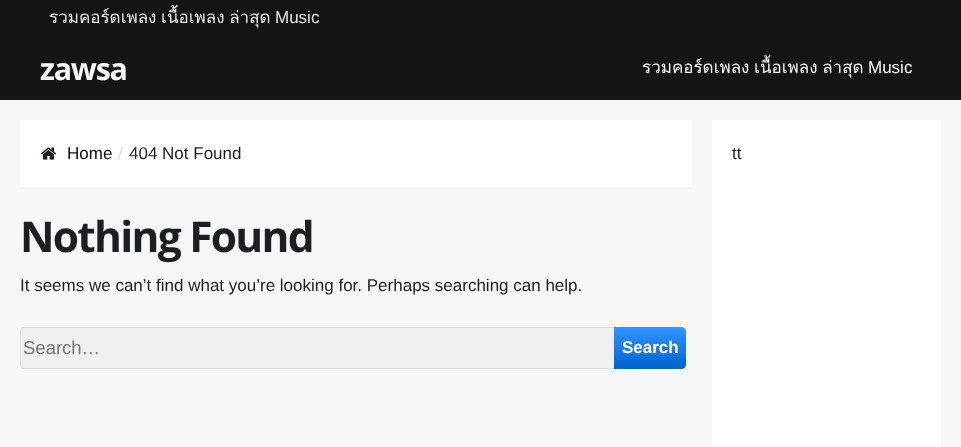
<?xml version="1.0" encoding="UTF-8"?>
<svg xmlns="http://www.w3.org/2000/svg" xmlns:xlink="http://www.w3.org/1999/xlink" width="961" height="447">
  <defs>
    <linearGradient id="g1" gradientUnits="userSpaceOnUse" x1="650" y1="327" x2="650" y2="369"><stop offset="0" stop-color="#3395ff" /><stop offset="1" stop-color="#0062cc" /></linearGradient>
  </defs>
  <rect width="100%" height="100%" fill="#f7f7f8" />
  <rect width="961" height="100" fill="#131416" />
  <rect x="20" y="120" width="672" height="67" fill="#ffffff" />
  <image x="40" y="147" width="17" height="13" xlink:href="image1.png" />
  <rect x="20" y="327" width="600" height="42" rx="3" fill="#eef0f1" />
  <rect x="20.5" y="327.5" width="599" height="41" rx="2.5" fill="none" stroke="#383d42" stroke-opacity="0.1" />
  <path d="M 614 327 h 67 c 3 0 5 2 5 5 v 32 c 0 3 -2 5 -5 5 h -67 z" fill="url(#g1)" />
  <rect x="712" y="120" width="229" height="327" fill="#ffffff" />
  <text x="49" y="23" word-spacing="-1" style="font-family: Loma; font-size: 17px; fill: #e6e8ea">รวมคอร์ดเพลง เนื้อเพลง ล่าสุด</text>
  <text x="275" y="23" style="font-family: Liberation Sans; font-size: 17px; fill: #e6e8ea">Music</text>
  <text x="40" y="80" style="font-family: Open Sans; font-size: 30.5px; font-weight: bold; letter-spacing: -1.25px; fill: #f7f7f8">zawsa</text>
  <text x="642" y="73" word-spacing="-1" style="font-family: Loma; font-size: 17px; fill: #f7f7f8">รวมคอร์ดเพลง เนื้อเพลง ล่าสุด</text>
  <text x="868" y="73" style="font-family: Liberation Sans; font-size: 17px; fill: #f7f7f8">Music</text>
  <text x="67" y="159" style="font-family: Liberation Sans; font-size: 17px; fill: #090a0b">Home</text>
  <text x="118" y="159" style="font-family: Liberation Sans; font-size: 17px; fill: #dee0e3">/</text>
  <text x="129" y="159" style="font-family: Liberation Sans; font-size: 17px; fill: #1c1e21">404 Not Found</text>
  <text x="20" y="252" style="font-family: Open Sans; font-size: 42.5px; font-weight: bold; letter-spacing: -1.75px; fill: #1c1e21">Nothing Found</text>
  <text x="20" y="291" style="font-family: Liberation Sans; font-size: 17px; fill: #1c1e21">It seems we can’t find what you’re looking for. Perhaps searching can help.</text>
  <text x="23" y="354" style="font-family: Liberation Sans; font-size: 18.5px; fill: #757575">Search…</text>
  <text x="622" y="353" style="font-family: Liberation Sans; font-size: 17px; font-weight: bold; fill: #ffffff">Search</text>
  <text x="732" y="159" style="font-family: Liberation Sans; font-size: 17px; fill: #1c1e21">tt</text>
</svg>
